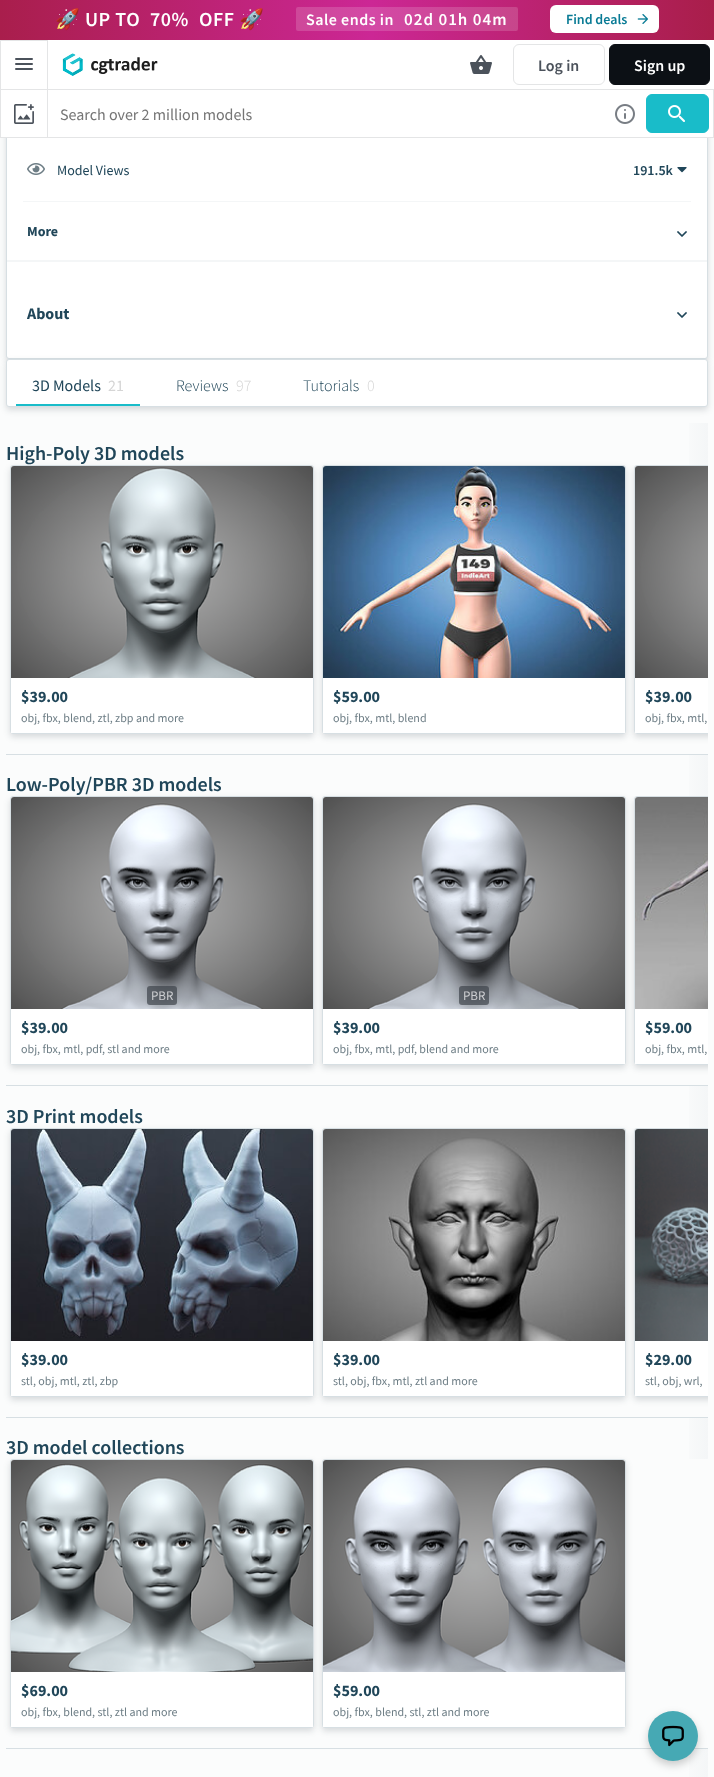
<?xml version="1.0" encoding="UTF-8"?>
<svg xmlns="http://www.w3.org/2000/svg" xmlns:xlink="http://www.w3.org/1999/xlink" width="714" height="1777">
  <defs>
    <linearGradient id="g1" gradientUnits="userSpaceOnUse" x1="0" y1="19" x2="714" y2="19"><stop offset="0" stop-color="#a91e4c" /><stop offset="0.52" stop-color="#cc2795" /><stop offset="1" stop-color="#a91e4a" /></linearGradient>
    <linearGradient id="g2" gradientUnits="userSpaceOnUse" x1="678" y1="444" x2="708" y2="444"><stop offset="0" stop-color="#fbfcfc" /><stop offset="1" stop-color="#f4f6f7" /></linearGradient>
    <clipPath id="clip1"><rect x="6" y="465" width="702" height="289" /></clipPath>
    <clipPath id="clip2"><rect x="6" y="465" width="702" height="289" /></clipPath>
    <linearGradient id="g3" gradientUnits="userSpaceOnUse" x1="678" y1="776" x2="708" y2="776"><stop offset="0" stop-color="#fbfcfc" /><stop offset="1" stop-color="#f4f6f7" /></linearGradient>
    <clipPath id="clip3"><rect x="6" y="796" width="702" height="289" /></clipPath>
    <clipPath id="clip4"><rect x="6" y="796" width="702" height="289" /></clipPath>
    <linearGradient id="g4" gradientUnits="userSpaceOnUse" x1="678" y1="1107" x2="708" y2="1107"><stop offset="0" stop-color="#fbfcfc" /><stop offset="1" stop-color="#f4f6f7" /></linearGradient>
    <clipPath id="clip5"><rect x="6" y="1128" width="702" height="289" /></clipPath>
    <clipPath id="clip6"><rect x="6" y="1128" width="702" height="289" /></clipPath>
    <linearGradient id="g5" gradientUnits="userSpaceOnUse" x1="678" y1="1439" x2="708" y2="1439"><stop offset="0" stop-color="#fbfcfc" /><stop offset="1" stop-color="#f4f6f7" /></linearGradient>
    <linearGradient id="g6" gradientUnits="userSpaceOnUse" x1="678" y1="1770" x2="708" y2="1770"><stop offset="0" stop-color="#fbfcfc" /><stop offset="1" stop-color="#f4f6f7" /></linearGradient>
  </defs>
  <rect width="100%" height="100%" fill="#fbfcfc" />
  <rect x="6" y="-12" width="702" height="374" rx="3" fill="#0e1e26" fill-opacity="0.15" filter="blur(3px)" />
  <rect x="6.5" y="-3.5" width="701" height="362" rx="2.5" fill="#ffffff" stroke="#d7dfe3" />
  <rect y="40" width="714" height="97" fill="#ffffff" />
  <rect width="714" height="40" fill="url(#g1)" />
  <rect x="296" y="7" width="222" height="24" rx="2" fill="#ffffff" fill-opacity="0.16" />
  <rect x="550" y="5" width="109" height="28" rx="6" fill="#ffffff" />
  <image x="637" y="14" width="11" height="10" xlink:href="image1.png" />
  <path d="M 0 40 h 48 l -1 1 h -46 z" fill="#e4e5e6" />
  <path d="M 48 40 v 49 h -1 v -48 z m -48 49 v -49 l 1 1 v 48 z" fill="#1e2732" fill-opacity="0.12" />
  <rect x="15" y="63" width="18" height="2" rx="1" fill="#4b525b" />
  <rect x="15" y="58" width="18" height="2" rx="1" fill="#4b525b" />
  <rect x="15" y="68" width="18" height="2" rx="1" fill="#4b525b" />
  <image x="62" y="53" width="96" height="23" xlink:href="image2.png" />
  <image x="470" y="55" width="22" height="19" xlink:href="image3.png" />
  <rect x="513.5" y="44.5" width="91" height="40" rx="5.5" fill="none" stroke="#e4e5e6" />
  <rect x="609.5" y="44.5" width="100" height="40" rx="5.5" fill="#0c1015" stroke="#0c1015" />
  <rect x="0.5" y="89.5" width="713" height="48" fill="none" stroke="#e4e5e6" />
  <rect x="47" y="90" width="1" height="47" fill="#e4e5e6" />
  <image x="14" y="104" width="20" height="20" xlink:href="image4.png" />
  <image x="615" y="104" width="20" height="20" xlink:href="image5.png" />
  <rect x="646.5" y="94.5" width="62" height="38" rx="5.5" fill="#19bcc9" stroke="#19bcc9" />
  <image x="668" y="105" width="17" height="17" xlink:href="image6.png" />
  <rect x="7" y="260" width="700" height="2" fill="#f4f6f7" />
  <image x="27" y="163" width="18" height="12" xlink:href="image7.png" />
  <image x="677" y="167" width="10" height="6" xlink:href="image8.png" />
  <rect x="23" y="201" width="668" height="1" fill="#f4f6f7" />
  <image x="677" y="231" width="10" height="6" xlink:href="image9.png" />
  <image x="677" y="312" width="10" height="6" xlink:href="image9.png" />
  <rect x="6" y="362" width="702" height="48" rx="3" fill="#0e1e26" fill-opacity="0.15" filter="blur(3px)" />
  <rect x="6.5" y="359.5" width="701" height="47" rx="2.5" fill="#ffffff" stroke="#d7dfe3" />
  <rect x="16" y="404" width="124" height="2" fill="#19bcc9" />
  <rect x="689" y="423" width="19" height="42" fill="url(#g2)" />
  <rect x="10" y="468" width="304" height="269" rx="3" fill="#0e1e26" fill-opacity="0.15" filter="blur(3px)" />
  <rect x="10.5" y="465.5" width="303" height="268" rx="2.5" fill="#ffffff" stroke="#d7dfe3" />
  <image x="11" y="466" width="302" height="212" xlink:href="image10.png" />
  <rect x="11" y="731" width="302" height="2" fill="#ffffff" />
  <rect x="322" y="468" width="304" height="269" rx="3" fill="#0e1e26" fill-opacity="0.15" filter="blur(3px)" />
  <rect x="322.5" y="465.5" width="303" height="268" rx="2.5" fill="#ffffff" stroke="#d7dfe3" />
  <image x="323" y="466" width="302" height="212" xlink:href="image11.png" />
  <rect x="323" y="731" width="302" height="2" fill="#ffffff" />
  <g clip-path="url(#clip1)">
    <rect x="634" y="468" width="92" height="269" rx="3" fill="#0e1e26" fill-opacity="0.15" filter="blur(3px)" />
  </g>
  <path d="M 637 465 h 71 v 269 h -71 c -1.5 0 -3 -1.5 -3 -3 v -263 c 0 -1.5 1.5 -3 3 -3 z" fill="#ffffff" />
  <g clip-path="url(#clip2)">
    <rect x="634.5" y="465.5" width="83" height="268" rx="2.5" fill="none" stroke="#d7dfe3" />
  </g>
  <image x="635" y="466" width="73" height="212" xlink:href="image12.png" />
  <rect x="635" y="731" width="2" height="2" fill="#ffffff" />
  <rect x="6" y="754" width="702" height="1" fill="#d7dfe3" />
  <rect x="689" y="755" width="19" height="41" fill="url(#g3)" />
  <rect x="10" y="799" width="304" height="269" rx="3" fill="#0e1e26" fill-opacity="0.15" filter="blur(3px)" />
  <rect x="10.5" y="796.5" width="303" height="268" rx="2.5" fill="#ffffff" stroke="#d7dfe3" />
  <image x="11" y="797" width="302" height="212" xlink:href="image13.png" />
  <rect x="11" y="1062" width="302" height="2" fill="#ffffff" />
  <rect x="147" y="986" width="30" height="19" rx="3" fill="#3f444c" fill-opacity="0.7" />
  <rect x="322" y="799" width="304" height="269" rx="3" fill="#0e1e26" fill-opacity="0.15" filter="blur(3px)" />
  <rect x="322.5" y="796.5" width="303" height="268" rx="2.5" fill="#ffffff" stroke="#d7dfe3" />
  <image x="323" y="797" width="302" height="212" xlink:href="image14.png" />
  <rect x="323" y="1062" width="302" height="2" fill="#ffffff" />
  <rect x="459" y="986" width="30" height="19" rx="3" fill="#3f444c" fill-opacity="0.7" />
  <g clip-path="url(#clip3)">
    <rect x="634" y="799" width="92" height="269" rx="3" fill="#0e1e26" fill-opacity="0.15" filter="blur(3px)" />
  </g>
  <path d="M 637 796 h 71 v 269 h -71 c -1.5 0 -3 -1.5 -3 -3 v -263 c 0 -1.5 1.5 -3 3 -3 z" fill="#ffffff" />
  <g clip-path="url(#clip4)">
    <rect x="634.5" y="796.5" width="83" height="268" rx="2.5" fill="none" stroke="#d7dfe3" />
  </g>
  <image x="635" y="797" width="73" height="212" xlink:href="image15.png" />
  <rect x="635" y="1062" width="2" height="2" fill="#ffffff" />
  <rect x="6" y="1085" width="702" height="1" fill="#d7dfe3" />
  <rect x="689" y="1086" width="19" height="42" fill="url(#g4)" />
  <rect x="10" y="1131" width="304" height="269" rx="3" fill="#0e1e26" fill-opacity="0.15" filter="blur(3px)" />
  <rect x="10.5" y="1128.5" width="303" height="268" rx="2.5" fill="#ffffff" stroke="#d7dfe3" />
  <image x="11" y="1129" width="302" height="212" xlink:href="image16.png" />
  <rect x="11" y="1394" width="302" height="2" fill="#ffffff" />
  <rect x="322" y="1131" width="304" height="269" rx="3" fill="#0e1e26" fill-opacity="0.15" filter="blur(3px)" />
  <rect x="322.5" y="1128.5" width="303" height="268" rx="2.5" fill="#ffffff" stroke="#d7dfe3" />
  <image x="323" y="1129" width="302" height="212" xlink:href="image17.png" />
  <rect x="323" y="1394" width="302" height="2" fill="#ffffff" />
  <g clip-path="url(#clip5)">
    <rect x="634" y="1131" width="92" height="269" rx="3" fill="#0e1e26" fill-opacity="0.15" filter="blur(3px)" />
  </g>
  <path d="M 637 1128 h 71 v 269 h -71 c -1.5 0 -3 -1.5 -3 -3 v -263 c 0 -1.5 1.5 -3 3 -3 z" fill="#ffffff" />
  <g clip-path="url(#clip6)">
    <rect x="634.5" y="1128.5" width="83" height="268" rx="2.5" fill="none" stroke="#d7dfe3" />
  </g>
  <image x="635" y="1129" width="73" height="212" xlink:href="image18.png" />
  <rect x="635" y="1394" width="2" height="2" fill="#ffffff" />
  <rect x="6" y="1417" width="702" height="1" fill="#d7dfe3" />
  <rect x="689" y="1418" width="19" height="41" fill="url(#g5)" />
  <rect x="10" y="1462" width="304" height="269" rx="3" fill="#0e1e26" fill-opacity="0.15" filter="blur(3px)" />
  <rect x="10.5" y="1459.5" width="303" height="268" rx="2.5" fill="#ffffff" stroke="#d7dfe3" />
  <image x="11" y="1460" width="302" height="212" xlink:href="image19.png" />
  <rect x="11" y="1725" width="302" height="2" fill="#ffffff" />
  <rect x="322" y="1462" width="304" height="269" rx="3" fill="#0e1e26" fill-opacity="0.15" filter="blur(3px)" />
  <rect x="322.5" y="1459.5" width="303" height="268" rx="2.5" fill="#ffffff" stroke="#d7dfe3" />
  <image x="323" y="1460" width="302" height="212" xlink:href="image20.png" />
  <rect x="323" y="1725" width="302" height="2" fill="#ffffff" />
  <rect x="6" y="1748" width="702" height="1" fill="#d7dfe3" />
  <rect x="689" y="1749" width="19" height="28" fill="url(#g6)" />
  <rect x="648" y="1715" width="50" height="50" rx="25" fill="#000000" fill-opacity="0.2" filter="blur(4px)" />
  <circle cx="673" cy="1736" r="25" fill="#46a9b4" />
  <image x="662" y="1725" width="22" height="22" xlink:href="image21.png" />
  <text x="55" y="26" style="font-family: Noto Color Emoji; font-size: 20px; font-weight: bold; letter-spacing: 0.5px; fill: #ffffff">🚀</text>
  <text x="85" y="26" style="font-family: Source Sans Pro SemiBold; font-size: 20px; font-weight: 600; letter-spacing: 0.5px; fill: #ffffff">UP TO</text>
  <text x="150" y="26" style="font-family: Source Sans Pro SemiBold; font-size: 20px; font-weight: 600; letter-spacing: 0.5px; fill: #ffffff">70%</text>
  <text x="199" y="26" style="font-family: Source Sans Pro SemiBold; font-size: 20px; font-weight: 600; letter-spacing: 0.5px; fill: #ffffff">OFF</text>
  <text x="239" y="26" style="font-family: Noto Color Emoji; font-size: 20px; font-weight: bold; letter-spacing: 0.5px; fill: #ffffff">🚀</text>
  <text x="306" y="25" style="font-family: Source Sans Pro SemiBold; font-size: 16px; font-weight: 600; letter-spacing: 0.5px; fill: #ffffff">Sale ends in</text>
  <text x="404" y="25" style="font-family: Source Sans Pro SemiBold; font-size: 17px; font-weight: 600; letter-spacing: 1px; fill: #ffffff">02d 01h 04m</text>
  <text x="566" y="24" style="font-family: Source Sans Pro SemiBold; font-size: 14px; font-weight: 600; fill: #097b95">Find deals</text>
  <text x="538" y="71" style="font-family: Source Sans Pro SemiBold; font-size: 16px; font-weight: 600; fill: #4b525b">Log in</text>
  <text x="634" y="71" style="font-family: Source Sans Pro SemiBold; font-size: 16px; font-weight: 600; fill: #ffffff">Sign up</text>
  <text x="60" y="120" style="font-family: Source Sans Pro; font-size: 16px; fill: #757575">Search over 2 million models</text>
  <text x="57" y="175" style="font-family: Source Sans Pro; font-size: 14px; fill: #204659">Model Views</text>
  <text x="633" y="175" style="font-family: Source Sans Pro SemiBold; font-size: 14px; font-weight: 600; fill: #204659">191.5k</text>
  <text x="27" y="236" style="font-family: Source Sans Pro; font-size: 14px; font-weight: bold; fill: #204659">More</text>
  <text x="27" y="319" style="font-family: Source Sans Pro; font-size: 16px; font-weight: bold; fill: #204659">About</text>
  <text x="32" y="391" style="font-family: Source Sans Pro; font-size: 16px; fill: #204659">3D Models</text>
  <text x="108" y="391" style="font-family: Source Sans Pro; font-size: 16px; fill: #d5d5d5">21</text>
  <text x="176" y="391" style="font-family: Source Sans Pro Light; font-size: 16px; font-weight: 300; fill: #204659">Reviews</text>
  <text x="236" y="391" style="font-family: Source Sans Pro Light; font-size: 16px; font-weight: 300; fill: #d5d5d5">97</text>
  <text x="303" y="391" style="font-family: Source Sans Pro Light; font-size: 16px; font-weight: 300; fill: #204659">Tutorials</text>
  <text x="367" y="391" style="font-family: Source Sans Pro Light; font-size: 16px; font-weight: 300; fill: #d5d5d5">0</text>
  <text x="6" y="460" style="font-family: Source Sans Pro SemiBold; font-size: 20px; font-weight: 600; fill: #204659">High-Poly 3D models</text>
  <text x="21" y="702" style="font-family: Source Sans Pro; font-size: 16px; font-weight: bold; fill: #204659">$39.00</text>
  <text x="21" y="722" style="font-family: Source Sans Pro; font-size: 12px; fill: #6d7d85">obj, fbx, blend, ztl, zbp and more</text>
  <text x="333" y="702" style="font-family: Source Sans Pro; font-size: 16px; font-weight: bold; fill: #204659">$59.00</text>
  <text x="333" y="722" style="font-family: Source Sans Pro; font-size: 12px; fill: #6d7d85">obj, fbx, mtl, blend</text>
  <text x="645" y="702" style="font-family: Source Sans Pro; font-size: 16px; font-weight: bold; fill: #204659">$39.00</text>
  <text x="645" y="722" style="font-family: Source Sans Pro; font-size: 12px; fill: #6d7d85">obj, fbx, mtl,</text>
  <text x="6" y="791" style="font-family: Source Sans Pro SemiBold; font-size: 20px; font-weight: 600; fill: #204659">Low-Poly/PBR 3D models</text>
  <text x="151" y="1000" style="font-family: Source Sans Pro; font-size: 13px; fill: #cdced1">PBR</text>
  <text x="21" y="1033" style="font-family: Source Sans Pro; font-size: 16px; font-weight: bold; fill: #204659">$39.00</text>
  <text x="21" y="1053" style="font-family: Source Sans Pro; font-size: 12px; fill: #6d7d85">obj, fbx, mtl, pdf, stl and more</text>
  <text x="463" y="1000" style="font-family: Source Sans Pro; font-size: 13px; fill: #cdced1">PBR</text>
  <text x="333" y="1033" style="font-family: Source Sans Pro; font-size: 16px; font-weight: bold; fill: #204659">$39.00</text>
  <text x="333" y="1053" style="font-family: Source Sans Pro; font-size: 12px; fill: #6d7d85">obj, fbx, mtl, pdf, blend and more</text>
  <text x="645" y="1033" style="font-family: Source Sans Pro; font-size: 16px; font-weight: bold; fill: #204659">$59.00</text>
  <text x="645" y="1053" style="font-family: Source Sans Pro; font-size: 12px; fill: #6d7d85">obj, fbx, mtl,</text>
  <text x="6" y="1123" style="font-family: Source Sans Pro SemiBold; font-size: 20px; font-weight: 600; fill: #204659">3D Print models</text>
  <text x="21" y="1365" style="font-family: Source Sans Pro; font-size: 16px; font-weight: bold; fill: #204659">$39.00</text>
  <text x="21" y="1385" style="font-family: Source Sans Pro; font-size: 12px; fill: #6d7d85">stl, obj, mtl, ztl, zbp</text>
  <text x="333" y="1365" style="font-family: Source Sans Pro; font-size: 16px; font-weight: bold; fill: #204659">$39.00</text>
  <text x="333" y="1385" style="font-family: Source Sans Pro; font-size: 12px; fill: #6d7d85">stl, obj, fbx, mtl, ztl and more</text>
  <text x="645" y="1365" style="font-family: Source Sans Pro; font-size: 16px; font-weight: bold; fill: #204659">$29.00</text>
  <text x="645" y="1385" style="font-family: Source Sans Pro; font-size: 12px; fill: #6d7d85">stl, obj, wrl,</text>
  <text x="6" y="1454" style="font-family: Source Sans Pro SemiBold; font-size: 20px; font-weight: 600; fill: #204659">3D model collections</text>
  <text x="21" y="1696" style="font-family: Source Sans Pro; font-size: 16px; font-weight: bold; fill: #204659">$69.00</text>
  <text x="21" y="1716" style="font-family: Source Sans Pro; font-size: 12px; fill: #6d7d85">obj, fbx, blend, stl, ztl and more</text>
  <text x="333" y="1696" style="font-family: Source Sans Pro; font-size: 16px; font-weight: bold; fill: #204659">$59.00</text>
  <text x="333" y="1716" style="font-family: Source Sans Pro; font-size: 12px; fill: #6d7d85">obj, fbx, blend, stl, ztl and more</text>
</svg>
